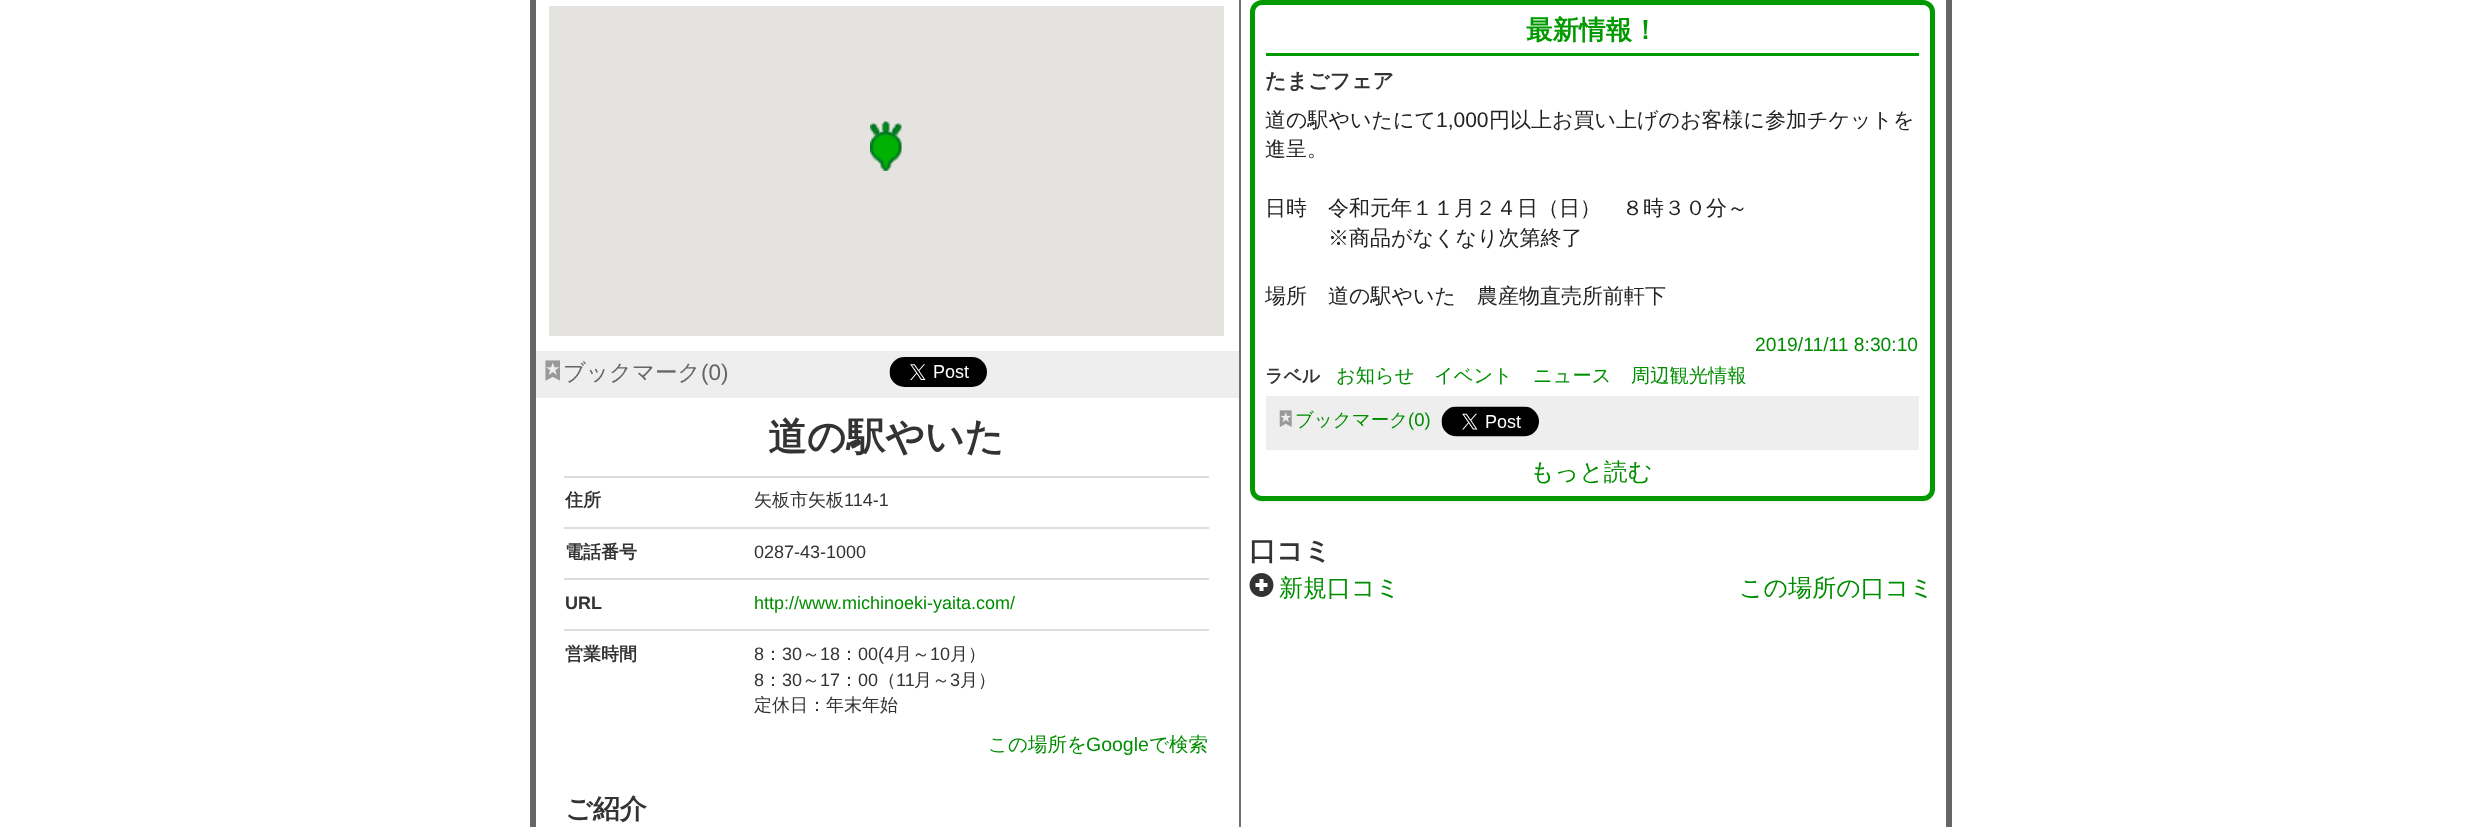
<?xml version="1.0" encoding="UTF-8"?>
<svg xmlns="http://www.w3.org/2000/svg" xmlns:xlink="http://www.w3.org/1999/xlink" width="2479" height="827">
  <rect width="100%" height="100%" fill="#ffffff" />
  <rect x="1946" width="6" height="827" fill="#666666" />
  <rect x="530" width="6" height="827" fill="#666666" />
  <rect x="549" y="6" width="675" height="330" fill="#e5e3df" />
  <image x="870" y="121" width="32" height="50" xlink:href="image1.png" />
  <rect x="536" y="351" width="703" height="47" fill="#eeeeee" />
  <image x="545" y="360" width="15" height="21" xlink:href="image2.png" />
  <image x="889" y="357" width="98" height="30" xlink:href="image3.png" />
  <rect x="564" y="476" width="645" height="2" fill="#dddddd" />
  <rect x="564" y="527" width="645" height="2" fill="#dddddd" />
  <rect x="564" y="578" width="645" height="2" fill="#dddddd" />
  <rect x="564" y="629" width="645" height="2" fill="#dddddd" />
  <rect x="1239" width="2" height="827" fill="#717071" />
  <rect x="1250" y="2" width="685" height="501" rx="12" fill="#000000" fill-opacity="0.05" filter="blur(1px)" />
  <rect x="1252.5" y="2.5" width="680" height="496" rx="9.5" fill="#ffffff" stroke="#009900" stroke-width="5" />
  <rect x="1266" y="53" width="653" height="3" fill="#009900" />
  <rect x="1266" y="396" width="653" height="54" fill="#eeeeee" />
  <image x="1279" y="410" width="13" height="17" xlink:href="image4.png" />
  <image x="1441" y="406" width="98" height="31" xlink:href="image5.png" />
  <image x="1249" y="573" width="25" height="24" xlink:href="image6.png" />
  <text x="563" y="380" style="font-family: WenQuanYi Zen Hei; font-size: 22.5px; font-weight: 500; fill: #666666">ブックマーク</text>
  <text x="701" y="380" style="font-family: Liberation Sans; font-size: 22.5px; fill: #666666">(0)</text>
  <text x="768" y="450" style="font-family: WenQuanYi Zen Hei; font-size: 38.75px; font-weight: bold; fill: #333333">道の駅やいた</text>
  <text x="565" y="506" style="font-family: WenQuanYi Zen Hei; font-size: 18px; font-weight: bold; fill: #333333">住所</text>
  <text x="754" y="506" style="font-family: WenQuanYi Zen Hei; font-size: 18px; font-weight: 500; fill: #333333">矢板市矢板</text>
  <text x="844" y="506" style="font-family: Liberation Sans; font-size: 18px; fill: #333333">114-1</text>
  <text x="565" y="558" style="font-family: WenQuanYi Zen Hei; font-size: 18px; font-weight: bold; fill: #333333">電話番号</text>
  <text x="754" y="558" style="font-family: Liberation Sans; font-size: 18px; fill: #333333">0287-43-1000</text>
  <text x="565" y="609" style="font-family: Liberation Sans; font-size: 18px; font-weight: bold; fill: #333333">URL</text>
  <text x="754" y="609" style="font-family: Liberation Sans; font-size: 18px; fill: #008d00">http://www.michinoeki-yaita.com/</text>
  <text x="565" y="660" style="font-family: WenQuanYi Zen Hei; font-size: 18px; font-weight: bold; fill: #333333">営業時間</text>
  <text x="754" y="660" style="font-family: Liberation Sans; font-size: 18px; fill: #333333">8</text>
  <text x="764" y="660" style="font-family: WenQuanYi Zen Hei; font-size: 18px; font-weight: 500; fill: #333333">：</text>
  <text x="782" y="660" style="font-family: Liberation Sans; font-size: 18px; fill: #333333">30</text>
  <text x="802" y="660" style="font-family: WenQuanYi Zen Hei; font-size: 18px; font-weight: 500; fill: #333333">～</text>
  <text x="820" y="660" style="font-family: Liberation Sans; font-size: 18px; fill: #333333">18</text>
  <text x="840" y="660" style="font-family: WenQuanYi Zen Hei; font-size: 18px; font-weight: 500; fill: #333333">：</text>
  <text x="858" y="660" style="font-family: Liberation Sans; font-size: 18px; fill: #333333">00(4</text>
  <text x="894" y="660" style="font-family: WenQuanYi Zen Hei; font-size: 18px; font-weight: 500; fill: #333333">月～</text>
  <text x="930" y="660" style="font-family: Liberation Sans; font-size: 18px; fill: #333333">10</text>
  <text x="950" y="660" style="font-family: WenQuanYi Zen Hei; font-size: 18px; font-weight: 500; fill: #333333">月）</text>
  <text x="754" y="686" style="font-family: Liberation Sans; font-size: 18px; fill: #333333">8</text>
  <text x="764" y="686" style="font-family: WenQuanYi Zen Hei; font-size: 18px; font-weight: 500; fill: #333333">：</text>
  <text x="782" y="686" style="font-family: Liberation Sans; font-size: 18px; fill: #333333">30</text>
  <text x="802" y="686" style="font-family: WenQuanYi Zen Hei; font-size: 18px; font-weight: 500; fill: #333333">～</text>
  <text x="820" y="686" style="font-family: Liberation Sans; font-size: 18px; fill: #333333">17</text>
  <text x="840" y="686" style="font-family: WenQuanYi Zen Hei; font-size: 18px; font-weight: 500; fill: #333333">：</text>
  <text x="858" y="686" style="font-family: Liberation Sans; font-size: 18px; fill: #333333">00</text>
  <text x="878" y="686" style="font-family: WenQuanYi Zen Hei; font-size: 18px; font-weight: 500; fill: #333333">（</text>
  <text x="896" y="686" style="font-family: Liberation Sans; font-size: 18px; fill: #333333">11</text>
  <text x="914" y="686" style="font-family: WenQuanYi Zen Hei; font-size: 18px; font-weight: 500; fill: #333333">月～</text>
  <text x="950" y="686" style="font-family: Liberation Sans; font-size: 18px; fill: #333333">3</text>
  <text x="960" y="686" style="font-family: WenQuanYi Zen Hei; font-size: 18px; font-weight: 500; fill: #333333">月）</text>
  <text x="754" y="711" style="font-family: WenQuanYi Zen Hei; font-size: 18px; font-weight: 500; fill: #333333">定休日：年末年始</text>
  <text x="988" y="751" style="font-family: WenQuanYi Zen Hei; font-size: 19.5px; font-weight: 500; fill: #008d00">この場所を</text>
  <text x="1086" y="751" style="font-family: Liberation Sans; font-size: 19.5px; fill: #008d00">Google</text>
  <text x="1149" y="751" style="font-family: WenQuanYi Zen Hei; font-size: 19.5px; font-weight: 500; fill: #008d00">で検索</text>
  <text x="565" y="818" style="font-family: WenQuanYi Zen Hei; font-size: 27px; font-weight: bold; fill: #333333">ご紹介</text>
  <text x="1526" y="39" style="font-family: WenQuanYi Zen Hei; font-size: 26.5px; font-weight: bold; fill: #009900">最新情報！</text>
  <text x="1265" y="88" style="font-family: WenQuanYi Zen Hei; font-size: 21px; font-weight: bold; fill: #333333">たまごフェア</text>
  <text x="1265" y="127" style="font-family: WenQuanYi Zen Hei; font-size: 21px; font-weight: 500; fill: #222222">道の駅やいたにて</text>
  <text x="1436" y="127" style="font-family: Liberation Sans; font-size: 21px; fill: #222222">1,000</text>
  <text x="1489" y="127" style="font-family: WenQuanYi Zen Hei; font-size: 21px; font-weight: 500; fill: #222222">円以上お買い上げのお客様に参加チケットを</text>
  <text x="1265" y="156" style="font-family: WenQuanYi Zen Hei; font-size: 21px; font-weight: 500; fill: #222222">進呈。</text>
  <text x="1265" y="215" style="font-family: WenQuanYi Zen Hei; font-size: 21px; font-weight: 500; fill: #222222">日時　令和元年１１月２４日（日）　８時３０分～</text>
  <text x="1328" y="245" style="font-family: WenQuanYi Zen Hei; font-size: 21px; font-weight: 500; fill: #222222">※商品がなくなり次第終了</text>
  <text x="1265" y="303" style="font-family: WenQuanYi Zen Hei; font-size: 21px; font-weight: 500; fill: #222222">場所　道の駅やいた　農産物直売所前軒下</text>
  <text x="1755" y="351" style="font-family: Liberation Sans; font-size: 19.25px; fill: #008d00">2019/11/11 8:30:10</text>
  <text x="1265" y="382" style="font-family: WenQuanYi Zen Hei; font-size: 18px; font-weight: bold; fill: #333333">ラベル</text>
  <text x="1336" y="382" style="font-family: WenQuanYi Zen Hei; font-size: 19.25px; font-weight: 500; fill: #008d00">お知らせ</text>
  <text x="1434" y="382" style="font-family: WenQuanYi Zen Hei; font-size: 19.25px; font-weight: 500; fill: #008d00">イベント</text>
  <text x="1533" y="382" style="font-family: WenQuanYi Zen Hei; font-size: 19.25px; font-weight: 500; fill: #008d00">ニュース</text>
  <text x="1631" y="382" style="font-family: WenQuanYi Zen Hei; font-size: 19.25px; font-weight: 500; fill: #008d00">周辺観光情報</text>
  <text x="1295" y="426" style="font-family: WenQuanYi Zen Hei; font-size: 18.5px; font-weight: 500; fill: #008d00">ブックマーク</text>
  <text x="1408" y="426" style="font-family: Liberation Sans; font-size: 18.5px; fill: #008d00">(0)</text>
  <text x="1530" y="480" style="font-family: WenQuanYi Zen Hei; font-size: 24px; font-weight: 500; fill: #008d00">もっと読む</text>
  <text x="1249" y="560" style="font-family: WenQuanYi Zen Hei; font-size: 27px; font-weight: bold; fill: #333333">口コミ</text>
  <text x="1279" y="596" style="font-family: WenQuanYi Zen Hei; font-size: 24px; font-weight: 500; fill: #008d00">新規口コミ</text>
  <text x="1739" y="596" style="font-family: WenQuanYi Zen Hei; font-size: 24px; font-weight: 500; fill: #008d00">この場所の口コミ</text>
</svg>
